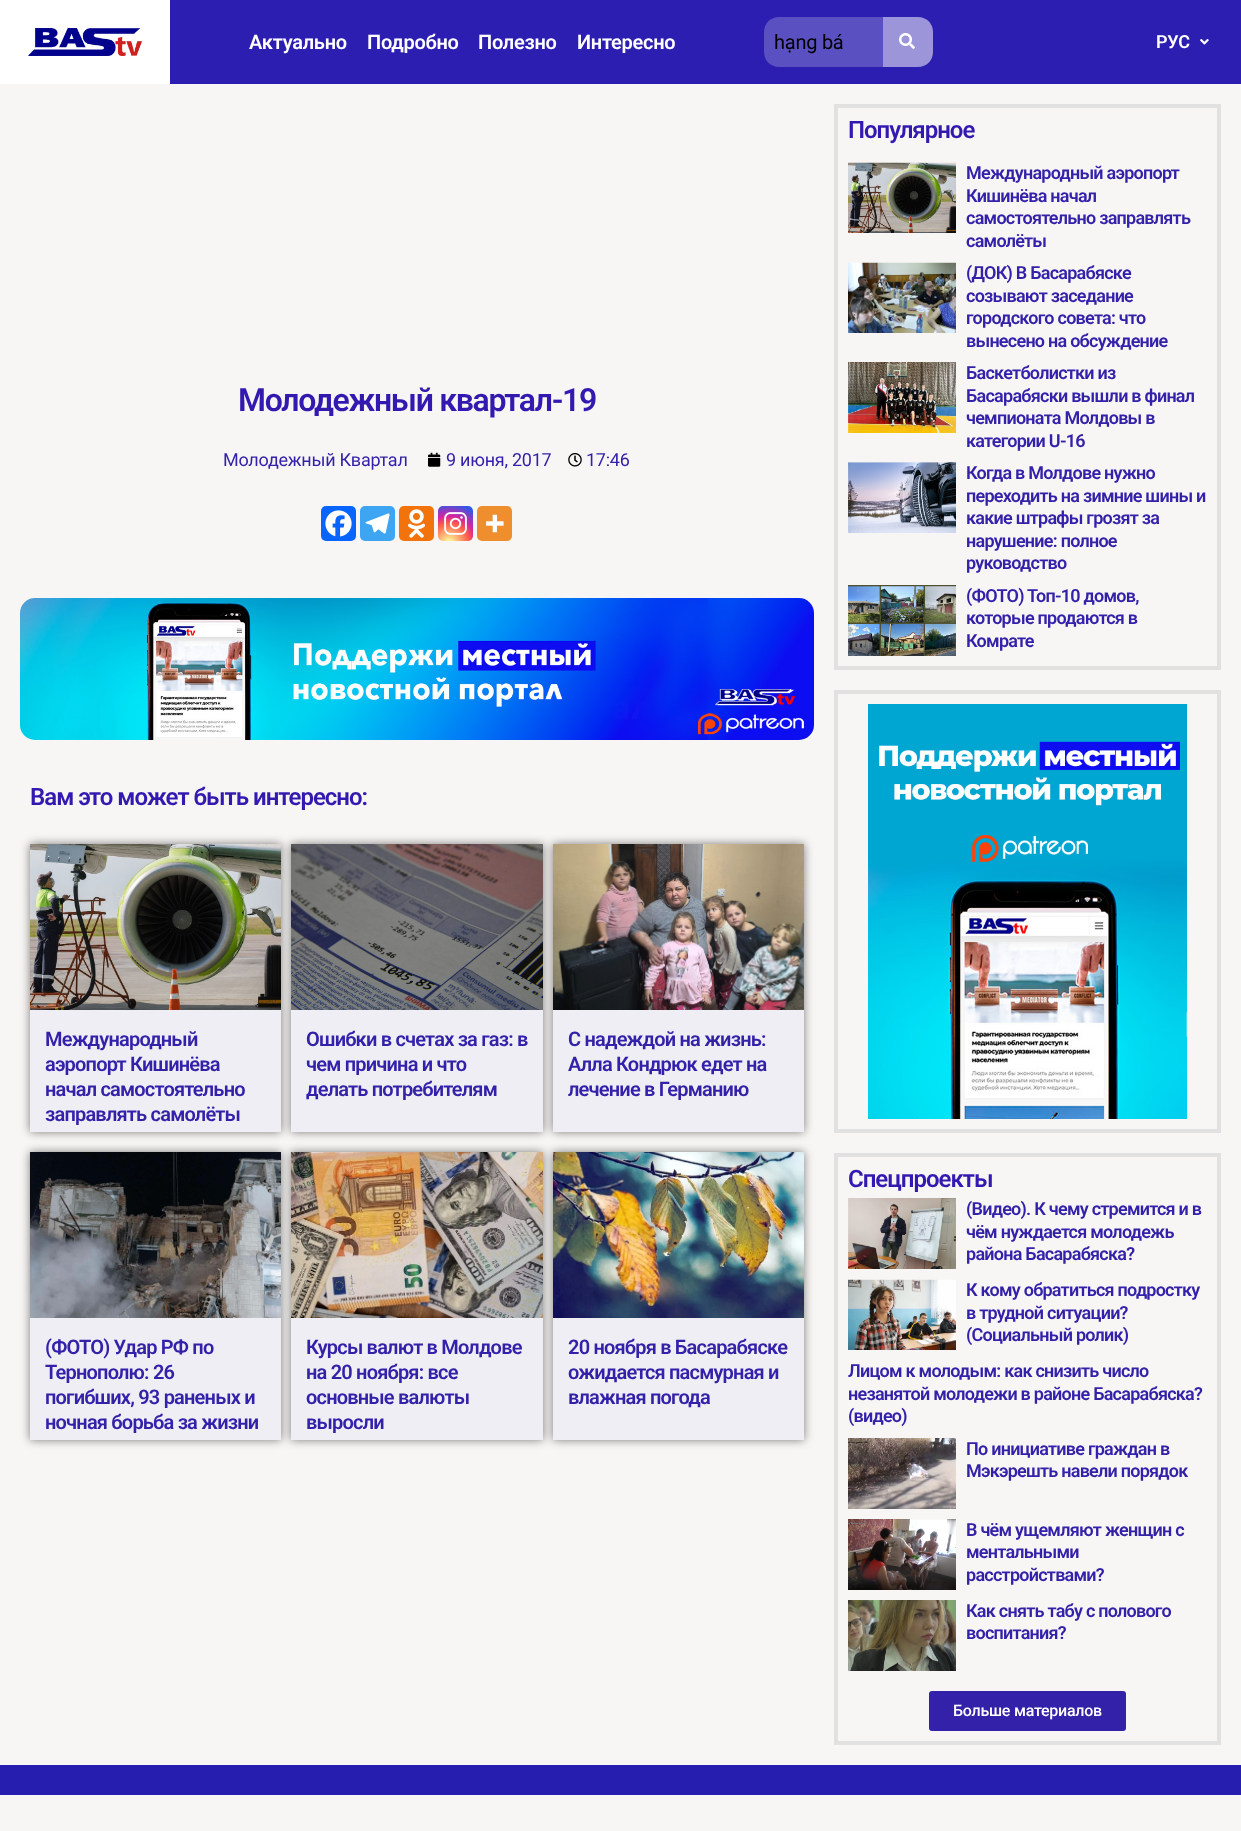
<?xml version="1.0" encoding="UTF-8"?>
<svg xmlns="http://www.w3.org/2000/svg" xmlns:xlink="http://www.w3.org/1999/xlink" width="1241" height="1831">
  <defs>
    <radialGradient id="g1" gradientUnits="userSpaceOnUse" cx="449" cy="543" r="45"><stop offset="0" stop-color="#fdf497" /><stop offset="0.05" stop-color="#fdf497" /><stop offset="0.45" stop-color="#fd5949" /><stop offset="0.6" stop-color="#d6249f" /><stop offset="0.9" stop-color="#285aeb" /></radialGradient>
  </defs>
  <rect width="100%" height="100%" fill="#f8f6f4" />
  <rect x="170" width="1071" height="84" fill="#2c1eb0" />
  <rect width="170" height="84" fill="#ffffff" />
  <image x="28" y="28" width="114" height="28" xlink:href="image1.png" />
  <path d="M 779 17 h 104 v 50 h -104 c -8.5 0 -15 -6.5 -15 -15 v -20 c 0 -8.5 6.5 -15 15 -15 z" fill="#5a50c1" />
  <path d="M 883 17 h 35 c 8.5 0 15 6.5 15 15 v 20 c 0 8.5 -6.5 15 -15 15 h -35 z" fill="#9c95da" />
  <image x="899" y="33" width="16" height="16" xlink:href="image2.png" />
  <image x="1200" y="39" width="9" height="6" xlink:href="image3.png" />
  <image x="428" y="452" width="13" height="15" xlink:href="image4.png" />
  <image x="568" y="453" width="14" height="14" xlink:href="image5.png" />
  <rect x="321" y="506" width="35" height="35" rx="5" fill="#0765fe" />
  <image x="325" y="510" width="27" height="27" xlink:href="image6.png" />
  <rect x="360" y="506" width="35" height="35" rx="5" fill="#3da5f1" />
  <image x="365" y="513" width="25" height="21" xlink:href="image7.png" />
  <rect x="399" y="506" width="35" height="35" rx="5" fill="#f2720c" />
  <image x="408" y="509" width="17" height="29" xlink:href="image8.png" />
  <rect x="438" y="506" width="35" height="35" rx="5" fill="url(#g1)" />
  <image x="444" y="512" width="23" height="23" xlink:href="image9.png" />
  <rect x="477" y="506" width="35" height="35" rx="5" fill="#ee8e2d" />
  <image x="486" y="514" width="18" height="19" xlink:href="image10.png" />
  <image x="20" y="598" width="794" height="142" xlink:href="image11.png" />
  <rect x="30" y="844" width="251" height="288" fill="#000000" fill-opacity="0.5" filter="blur(5px)" />
  <rect x="30" y="1010" width="251" height="122" fill="#eeeef4" />
  <rect x="291" y="844" width="252" height="288" fill="#000000" fill-opacity="0.5" filter="blur(5px)" />
  <image x="30" y="844" width="251" height="166" xlink:href="image12.png" />
  <rect x="291" y="1010" width="252" height="122" fill="#eeeef4" />
  <rect x="553" y="844" width="251" height="288" fill="#000000" fill-opacity="0.5" filter="blur(5px)" />
  <image x="291" y="844" width="252" height="166" xlink:href="image13.png" />
  <rect x="553" y="1010" width="251" height="122" fill="#eeeef4" />
  <image x="553" y="844" width="251" height="166" xlink:href="image14.png" />
  <rect x="30" y="1152" width="251" height="288" fill="#000000" fill-opacity="0.5" filter="blur(5px)" />
  <rect x="30" y="1318" width="251" height="122" fill="#eeeef4" />
  <rect x="291" y="1152" width="252" height="288" fill="#000000" fill-opacity="0.5" filter="blur(5px)" />
  <image x="30" y="1152" width="251" height="166" xlink:href="image15.png" />
  <rect x="291" y="1318" width="252" height="122" fill="#eeeef4" />
  <rect x="553" y="1152" width="251" height="288" fill="#000000" fill-opacity="0.5" filter="blur(5px)" />
  <image x="291" y="1152" width="252" height="166" xlink:href="image16.png" />
  <rect x="553" y="1318" width="251" height="122" fill="#eeeef4" />
  <image x="553" y="1152" width="251" height="166" xlink:href="image17.png" />
  <rect x="836" y="106" width="383" height="562" fill="none" stroke="#e1e1e1" stroke-width="4" />
  <image x="848" y="162" width="108" height="71" xlink:href="image18.png" />
  <image x="848" y="262" width="108" height="71" xlink:href="image19.png" />
  <image x="848" y="362" width="108" height="71" xlink:href="image20.png" />
  <image x="848" y="462" width="108" height="71" xlink:href="image21.png" />
  <image x="848" y="585" width="108" height="71" xlink:href="image22.png" />
  <rect x="836" y="692" width="383" height="439" fill="none" stroke="#e1e1e1" stroke-width="4" />
  <image x="868" y="704" width="319" height="415" xlink:href="image23.png" />
  <rect x="836" y="1155" width="383" height="588" fill="none" stroke="#e1e1e1" stroke-width="4" />
  <image x="848" y="1198" width="108" height="71" xlink:href="image24.png" />
  <image x="848" y="1279" width="108" height="71" xlink:href="image25.png" />
  <image x="848" y="1438" width="108" height="71" xlink:href="image26.png" />
  <image x="848" y="1519" width="108" height="71" xlink:href="image27.png" />
  <image x="848" y="1600" width="108" height="71" xlink:href="image28.png" />
  <rect x="929" y="1691" width="197" height="40" rx="3" fill="#3321a9" />
  <rect y="1765" width="1241" height="30" fill="#251eae" />
  <text x="249" y="49" style="font-family: Roboto; font-size: 20px; font-weight: 600; letter-spacing: -0.25px; fill: #ffffff">Актуально</text>
  <text x="367" y="49" style="font-family: Roboto; font-size: 20px; font-weight: 600; letter-spacing: -0.25px; fill: #ffffff">Подробно</text>
  <text x="478" y="49" style="font-family: Roboto; font-size: 20px; font-weight: 600; letter-spacing: -0.25px; fill: #ffffff">Полезно</text>
  <text x="577" y="49" style="font-family: Roboto; font-size: 20px; font-weight: 600; letter-spacing: -0.25px; fill: #ffffff">Интересно</text>
  <text x="774" y="49" style="font-family: Roboto; font-size: 20px; letter-spacing: -0.25px; fill: #000000">hạng bá</text>
  <text x="1156" y="48" style="font-family: Roboto; font-size: 18px; font-weight: 600; letter-spacing: -0.25px; fill: #ffffff">РУС</text>
  <text x="238" y="411" style="font-family: Roboto; font-size: 32px; font-weight: 600; letter-spacing: -1.3px; fill: #3319b0">Молодежный квартал-19</text>
  <text x="223" y="466" style="font-family: Roboto; font-size: 18px; letter-spacing: -0.25px; fill: #3321a9">Молодежный Квартал</text>
  <text x="446" y="466" style="font-family: Roboto; font-size: 18px; letter-spacing: -0.25px; fill: #3321a9">9 июня, 2017</text>
  <text x="586" y="466" style="font-family: Roboto; font-size: 18px; letter-spacing: -0.25px; fill: #3321a9">17:46</text>
  <text x="30" y="805" style="font-family: Roboto; font-size: 24px; font-weight: 600; letter-spacing: -1px; fill: #3319b0">Вам это может быть интересно:</text>
  <text x="45" y="1046" style="font-family: Roboto; font-size: 20px; font-weight: 600; letter-spacing: -0.8px; fill: #3321a9">Международный</text>
  <text x="45" y="1071" style="font-family: Roboto; font-size: 20px; font-weight: 600; letter-spacing: -0.8px; fill: #3321a9">аэропорт Кишинёва</text>
  <text x="45" y="1096" style="font-family: Roboto; font-size: 20px; font-weight: 600; letter-spacing: -0.8px; fill: #3321a9">начал самостоятельно</text>
  <text x="45" y="1121" style="font-family: Roboto; font-size: 20px; font-weight: 600; letter-spacing: -0.8px; fill: #3321a9">заправлять самолёты</text>
  <text x="306" y="1046" style="font-family: Roboto; font-size: 20px; font-weight: 600; letter-spacing: -0.8px; fill: #3321a9">Ошибки в счетах за газ: в</text>
  <text x="306" y="1071" style="font-family: Roboto; font-size: 20px; font-weight: 600; letter-spacing: -0.8px; fill: #3321a9">чем причина и что</text>
  <text x="306" y="1096" style="font-family: Roboto; font-size: 20px; font-weight: 600; letter-spacing: -0.8px; fill: #3321a9">делать потребителям</text>
  <text x="568" y="1046" style="font-family: Roboto; font-size: 20px; font-weight: 600; letter-spacing: -0.8px; fill: #3321a9">С надеждой на жизнь:</text>
  <text x="568" y="1071" style="font-family: Roboto; font-size: 20px; font-weight: 600; letter-spacing: -0.8px; fill: #3321a9">Алла Кондрюк едет на</text>
  <text x="568" y="1096" style="font-family: Roboto; font-size: 20px; font-weight: 600; letter-spacing: -0.8px; fill: #3321a9">лечение в Германию</text>
  <text x="45" y="1354" style="font-family: Roboto; font-size: 20px; font-weight: 600; letter-spacing: -0.8px; fill: #3321a9">(ФОТО) Удар РФ по</text>
  <text x="45" y="1379" style="font-family: Roboto; font-size: 20px; font-weight: 600; letter-spacing: -0.8px; fill: #3321a9">Тернополю: 26</text>
  <text x="45" y="1404" style="font-family: Roboto; font-size: 20px; font-weight: 600; letter-spacing: -0.8px; fill: #3321a9">погибших, 93 раненых и</text>
  <text x="45" y="1429" style="font-family: Roboto; font-size: 20px; font-weight: 600; letter-spacing: -0.8px; fill: #3321a9">ночная борьба за жизни</text>
  <text x="306" y="1354" style="font-family: Roboto; font-size: 20px; font-weight: 600; letter-spacing: -0.8px; fill: #3321a9">Курсы валют в Молдове</text>
  <text x="306" y="1379" style="font-family: Roboto; font-size: 20px; font-weight: 600; letter-spacing: -0.8px; fill: #3321a9">на 20 ноября: все</text>
  <text x="306" y="1404" style="font-family: Roboto; font-size: 20px; font-weight: 600; letter-spacing: -0.8px; fill: #3321a9">основные валюты</text>
  <text x="306" y="1429" style="font-family: Roboto; font-size: 20px; font-weight: 600; letter-spacing: -0.8px; fill: #3321a9">выросли</text>
  <text x="568" y="1354" style="font-family: Roboto; font-size: 20px; font-weight: 600; letter-spacing: -0.8px; fill: #3321a9">20 ноября в Басарабяске</text>
  <text x="568" y="1379" style="font-family: Roboto; font-size: 20px; font-weight: 600; letter-spacing: -0.8px; fill: #3321a9">ожидается пасмурная и</text>
  <text x="568" y="1404" style="font-family: Roboto; font-size: 20px; font-weight: 600; letter-spacing: -0.8px; fill: #3321a9">влажная погода</text>
  <text x="848" y="138" style="font-family: Roboto; font-size: 24px; font-weight: 600; letter-spacing: -1px; fill: #3319b0">Популярное</text>
  <text x="966" y="179" style="font-family: Roboto; font-size: 18px; font-weight: 600; letter-spacing: -0.75px; fill: #3321a9">Международный аэропорт</text>
  <text x="966" y="202" style="font-family: Roboto; font-size: 18px; font-weight: 600; letter-spacing: -0.75px; fill: #3321a9">Кишинёва начал</text>
  <text x="966" y="224" style="font-family: Roboto; font-size: 18px; font-weight: 600; letter-spacing: -0.75px; fill: #3321a9">самостоятельно заправлять</text>
  <text x="966" y="247" style="font-family: Roboto; font-size: 18px; font-weight: 600; letter-spacing: -0.75px; fill: #3321a9">самолёты</text>
  <text x="966" y="279" style="font-family: Roboto; font-size: 18px; font-weight: 600; letter-spacing: -0.75px; fill: #3321a9">(ДОК) В Басарабяске</text>
  <text x="966" y="302" style="font-family: Roboto; font-size: 18px; font-weight: 600; letter-spacing: -0.75px; fill: #3321a9">созывают заседание</text>
  <text x="966" y="324" style="font-family: Roboto; font-size: 18px; font-weight: 600; letter-spacing: -0.75px; fill: #3321a9">городского совета: что</text>
  <text x="966" y="347" style="font-family: Roboto; font-size: 18px; font-weight: 600; letter-spacing: -0.75px; fill: #3321a9">вынесено на обсуждение</text>
  <text x="966" y="379" style="font-family: Roboto; font-size: 18px; font-weight: 600; letter-spacing: -0.75px; fill: #3321a9">Баскетболистки из</text>
  <text x="966" y="402" style="font-family: Roboto; font-size: 18px; font-weight: 600; letter-spacing: -0.75px; fill: #3321a9">Басарабяски вышли в финал</text>
  <text x="966" y="424" style="font-family: Roboto; font-size: 18px; font-weight: 600; letter-spacing: -0.75px; fill: #3321a9">чемпионата Молдовы в</text>
  <text x="966" y="447" style="font-family: Roboto; font-size: 18px; font-weight: 600; letter-spacing: -0.75px; fill: #3321a9">категории U-16</text>
  <text x="966" y="479" style="font-family: Roboto; font-size: 18px; font-weight: 600; letter-spacing: -0.75px; fill: #3321a9">Когда в Молдове нужно</text>
  <text x="966" y="502" style="font-family: Roboto; font-size: 18px; font-weight: 600; letter-spacing: -0.75px; fill: #3321a9">переходить на зимние шины и</text>
  <text x="966" y="524" style="font-family: Roboto; font-size: 18px; font-weight: 600; letter-spacing: -0.75px; fill: #3321a9">какие штрафы грозят за</text>
  <text x="966" y="547" style="font-family: Roboto; font-size: 18px; font-weight: 600; letter-spacing: -0.75px; fill: #3321a9">нарушение: полное</text>
  <text x="966" y="569" style="font-family: Roboto; font-size: 18px; font-weight: 600; letter-spacing: -0.75px; fill: #3321a9">руководство</text>
  <text x="966" y="602" style="font-family: Roboto; font-size: 18px; font-weight: 600; letter-spacing: -0.75px; fill: #3321a9">(ФОТО) Топ-10 домов,</text>
  <text x="966" y="624" style="font-family: Roboto; font-size: 18px; font-weight: 600; letter-spacing: -0.75px; fill: #3321a9">которые продаются в</text>
  <text x="966" y="647" style="font-family: Roboto; font-size: 18px; font-weight: 600; letter-spacing: -0.75px; fill: #3321a9">Комрате</text>
  <text x="848" y="1187" style="font-family: Roboto; font-size: 24px; font-weight: 600; letter-spacing: -1px; fill: #3319b0">Спецпроекты</text>
  <text x="966" y="1215" style="font-family: Roboto; font-size: 18px; font-weight: 600; letter-spacing: -0.75px; fill: #3321a9">(Видео). К чему стремится и в</text>
  <text x="966" y="1238" style="font-family: Roboto; font-size: 18px; font-weight: 600; letter-spacing: -0.75px; fill: #3321a9">чём нуждается молодежь</text>
  <text x="966" y="1260" style="font-family: Roboto; font-size: 18px; font-weight: 600; letter-spacing: -0.75px; fill: #3321a9">района Басарабяска?</text>
  <text x="966" y="1296" style="font-family: Roboto; font-size: 18px; font-weight: 600; letter-spacing: -0.75px; fill: #3321a9">К кому обратиться подростку</text>
  <text x="966" y="1319" style="font-family: Roboto; font-size: 18px; font-weight: 600; letter-spacing: -0.75px; fill: #3321a9">в трудной ситуации?</text>
  <text x="966" y="1341" style="font-family: Roboto; font-size: 18px; font-weight: 600; letter-spacing: -0.75px; fill: #3321a9">(Социальный ролик)</text>
  <text x="848" y="1377" style="font-family: Roboto; font-size: 18px; font-weight: 600; letter-spacing: -0.75px; fill: #3321a9">Лицом к молодым: как снизить число</text>
  <text x="848" y="1400" style="font-family: Roboto; font-size: 18px; font-weight: 600; letter-spacing: -0.75px; fill: #3321a9">незанятой молодежи в районе Басарабяска?</text>
  <text x="848" y="1422" style="font-family: Roboto; font-size: 18px; font-weight: 600; letter-spacing: -0.75px; fill: #3321a9">(видео)</text>
  <text x="966" y="1455" style="font-family: Roboto; font-size: 18px; font-weight: 600; letter-spacing: -0.75px; fill: #3321a9">По инициативе граждан в</text>
  <text x="966" y="1477" style="font-family: Roboto; font-size: 18px; font-weight: 600; letter-spacing: -0.75px; fill: #3321a9">Мэкэрешть навели порядок</text>
  <text x="966" y="1536" style="font-family: Roboto; font-size: 18px; font-weight: 600; letter-spacing: -0.75px; fill: #3321a9">В чём ущемляют женщин с</text>
  <text x="966" y="1558" style="font-family: Roboto; font-size: 18px; font-weight: 600; letter-spacing: -0.75px; fill: #3321a9">ментальными</text>
  <text x="966" y="1581" style="font-family: Roboto; font-size: 18px; font-weight: 600; letter-spacing: -0.75px; fill: #3321a9">расстройствами?</text>
  <text x="966" y="1617" style="font-family: Roboto; font-size: 18px; font-weight: 600; letter-spacing: -0.75px; fill: #3321a9">Как снять табу с полового</text>
  <text x="966" y="1639" style="font-family: Roboto; font-size: 18px; font-weight: 600; letter-spacing: -0.75px; fill: #3321a9">воспитания?</text>
  <text x="953" y="1716" style="font-family: Roboto; font-size: 16px; font-weight: 500; letter-spacing: -0.25px; fill: #ffffff">Больше материалов</text>
</svg>
